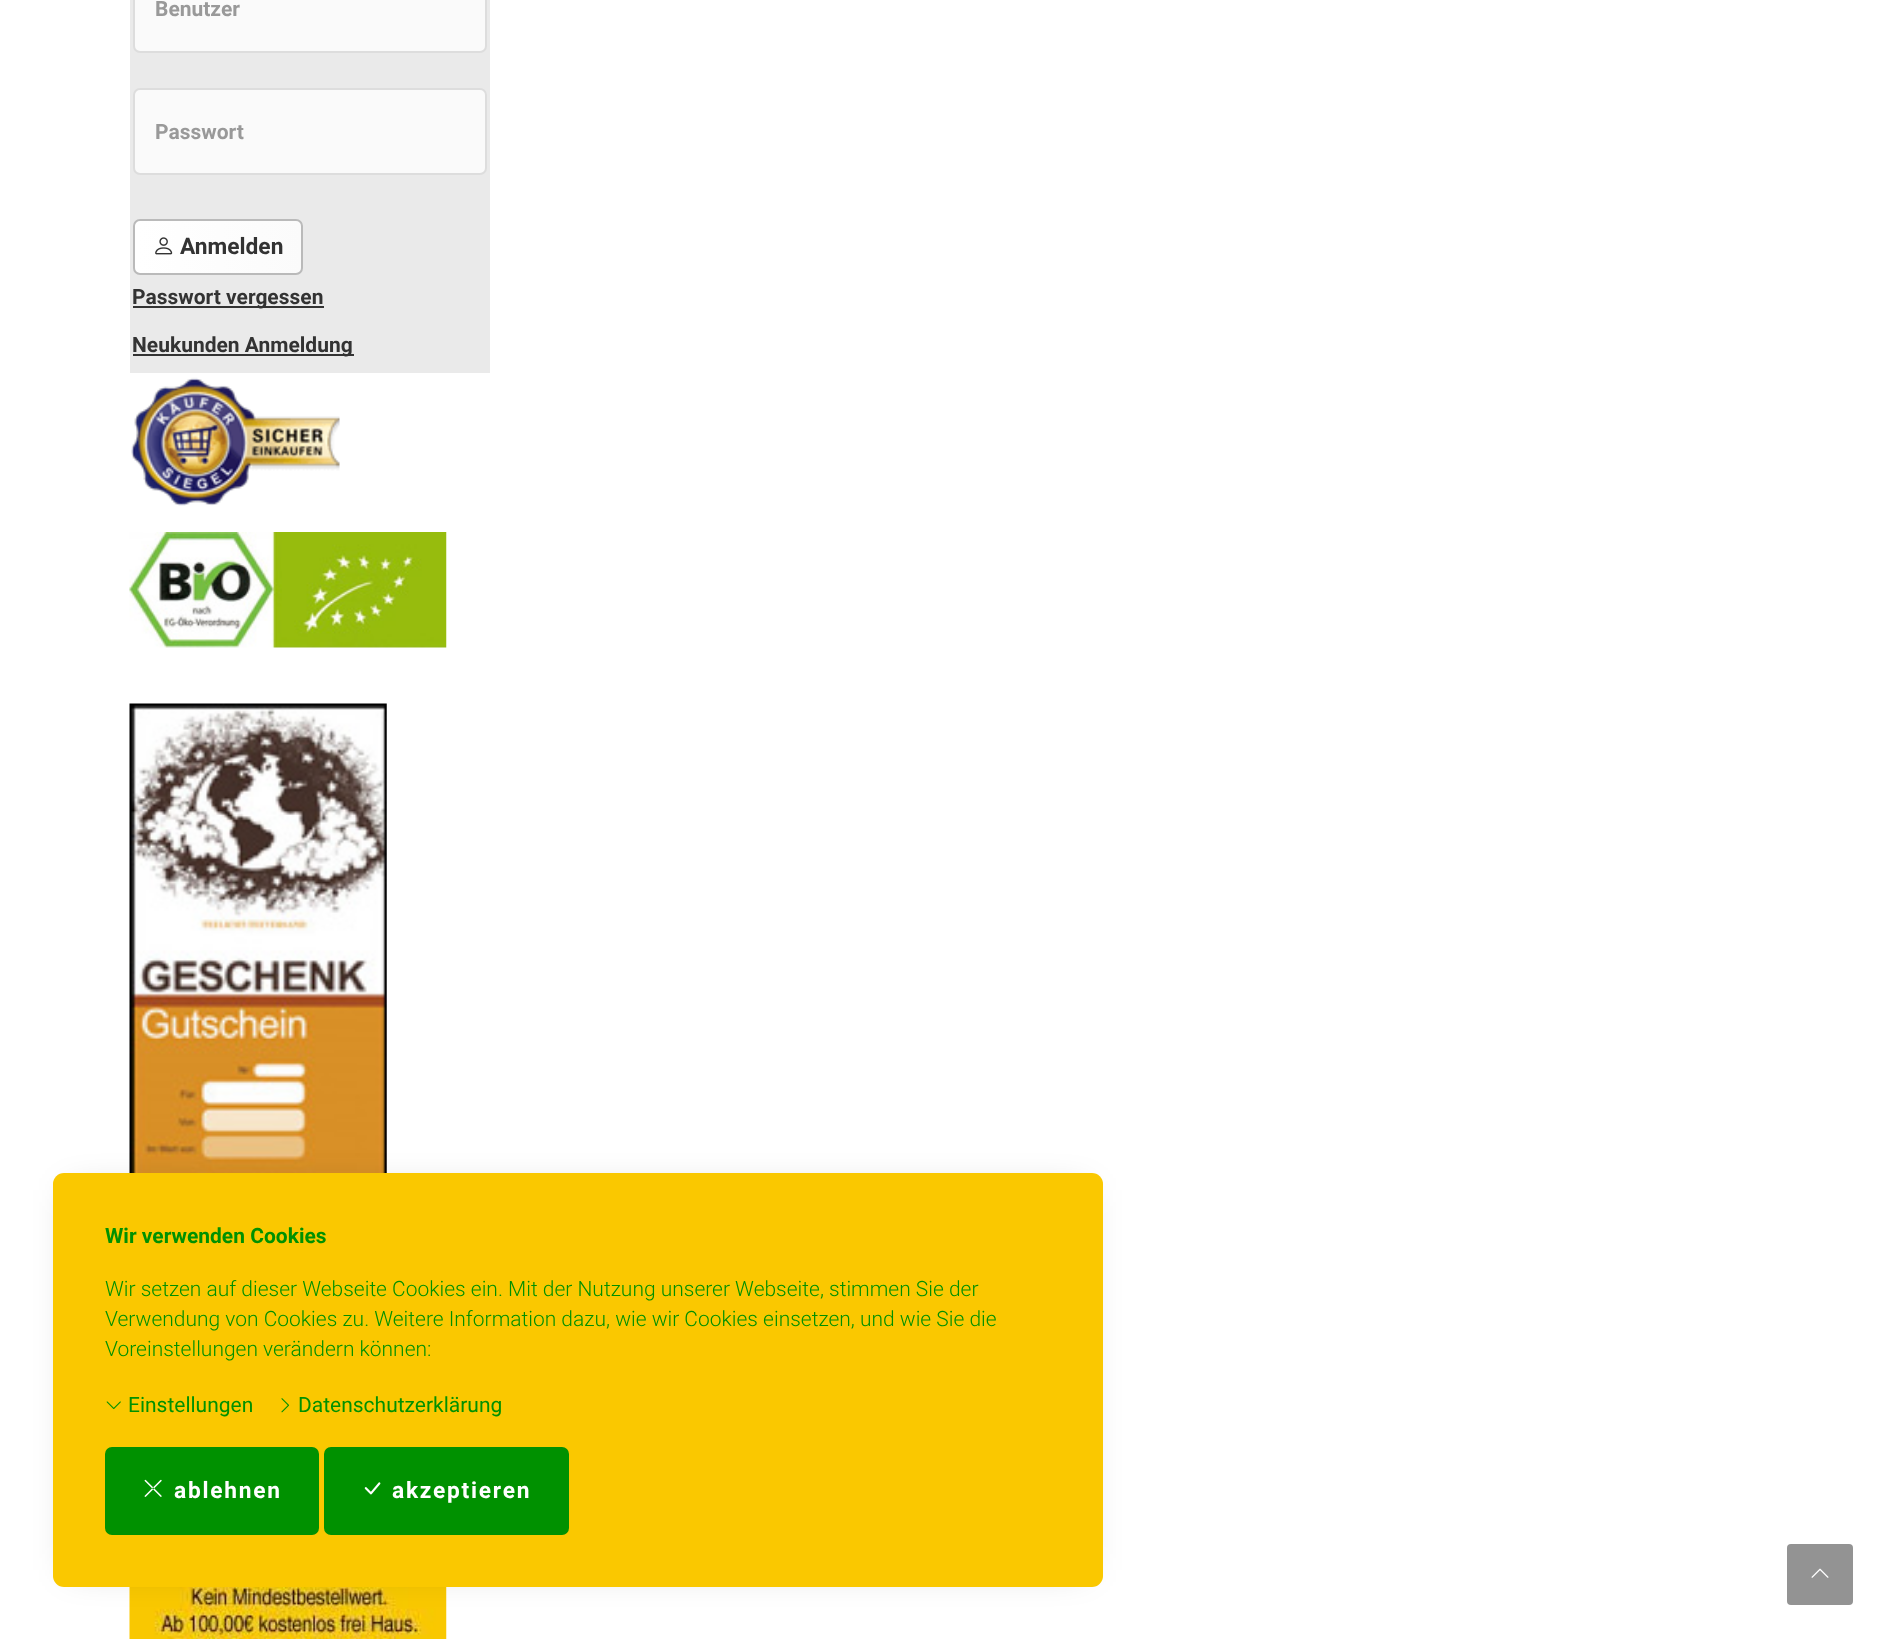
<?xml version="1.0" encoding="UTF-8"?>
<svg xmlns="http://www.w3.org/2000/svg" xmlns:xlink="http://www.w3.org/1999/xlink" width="1887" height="1639">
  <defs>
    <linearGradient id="g1" gradientUnits="userSpaceOnUse" x1="133" y1="247" x2="632" y2="247"><stop offset="0.01" stop-color="#ffffff" /><stop offset="0.42" stop-color="#fafafa" /><stop offset="1" stop-color="#fafafa" /></linearGradient>
  </defs>
  <rect width="100%" height="100%" fill="#ffffff" />
  <rect x="130" width="360" height="373" fill="#eaeaea" />
  <rect x="134" y="-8" width="352" height="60" rx="6" fill="#fafafa" stroke="#dddddd" stroke-width="2" />
  <rect x="134" y="89" width="352" height="85" rx="6" fill="#fafafa" stroke="#dddddd" stroke-width="2" />
  <rect x="134" y="220" width="168" height="54" rx="6" fill="url(#g1)" stroke="#bababa" stroke-width="2" />
  <image x="155" y="237" width="18" height="18" xlink:href="image1.png" />
  <rect x="133" y="306" width="191" height="2" fill="#333333" />
  <rect x="133" y="354" width="221" height="2" fill="#333333" />
  <image x="131" y="377" width="209" height="129" xlink:href="image2.png" />
  <image x="129" y="532" width="318" height="116" xlink:href="image3.png" />
  <image x="129" y="703" width="258" height="470" xlink:href="image4.png" />
  <image x="129" y="1587" width="318" height="52" xlink:href="image5.png" />
  <rect x="70" y="1190" width="1015" height="380" fill="#000000" fill-opacity="0.2" filter="blur(17.5px)" />
  <rect x="53" y="1173" width="1050" height="414" rx="11" fill="#fac800" />
  <image x="106" y="1401" width="15" height="9" xlink:href="image6.png" />
  <image x="281" y="1398" width="9" height="15" xlink:href="image7.png" />
  <rect x="106" y="1448" width="212" height="86" rx="6" fill="#009100" stroke="#009100" stroke-width="2" />
  <image x="144" y="1479" width="18" height="18" xlink:href="image8.png" />
  <rect x="325" y="1448" width="243" height="86" rx="6" fill="#009100" stroke="#009100" stroke-width="2" />
  <image x="364" y="1482" width="17" height="13" xlink:href="image9.png" />
  <rect x="1787" y="1544" width="66" height="61" rx="4" fill="#939393" />
  <image x="1811" y="1568" width="18" height="10" xlink:href="image10.png" />
  <text x="155" y="16" style="font-family: Roboto; font-size: 21px; font-weight: bold; fill: #999999">Benutzer</text>
  <text x="155" y="139" style="font-family: Roboto; font-size: 21px; font-weight: bold; fill: #999999">Passwort</text>
  <text x="180" y="254" style="font-family: Roboto; font-size: 22.75px; font-weight: bold; fill: #333333">Anmelden</text>
  <text x="132" y="304" style="font-family: Roboto; font-size: 21px; font-weight: bold; fill: #333333">Passwort vergessen</text>
  <text x="132" y="352" style="font-family: Roboto; font-size: 21px; font-weight: bold; fill: #333333">Neukunden Anmeldung</text>
  <text x="105" y="1243" style="font-family: Roboto; font-size: 21px; font-weight: bold; fill: #009100">Wir verwenden Cookies</text>
  <text x="105" y="1296" style="font-family: Roboto; font-size: 21px; font-weight: 300; fill: #009100">Wir setzen auf dieser Webseite Cookies ein. Mit der Nutzung unserer Webseite, stimmen Sie der</text>
  <text x="105" y="1326" style="font-family: Roboto; font-size: 21px; font-weight: 300; fill: #009100">Verwendung von Cookies zu. Weitere Information dazu, wie wir Cookies einsetzen, und wie Sie die</text>
  <text x="105" y="1356" style="font-family: Roboto; font-size: 21px; font-weight: 300; fill: #009100">Voreinstellungen verändern können:</text>
  <text x="128" y="1412" style="font-family: Roboto; font-size: 21px; fill: #009100">Einstellungen</text>
  <text x="298" y="1412" style="font-family: Roboto; font-size: 21px; fill: #009100">Datenschutzerklärung</text>
  <text x="174" y="1498" style="font-family: Roboto; font-size: 22.75px; font-weight: bold; letter-spacing: 1.75px; fill: #ffffff">ablehnen</text>
  <text x="392" y="1498" style="font-family: Roboto; font-size: 22.75px; font-weight: bold; letter-spacing: 1.75px; fill: #ffffff">akzeptieren</text>
</svg>
